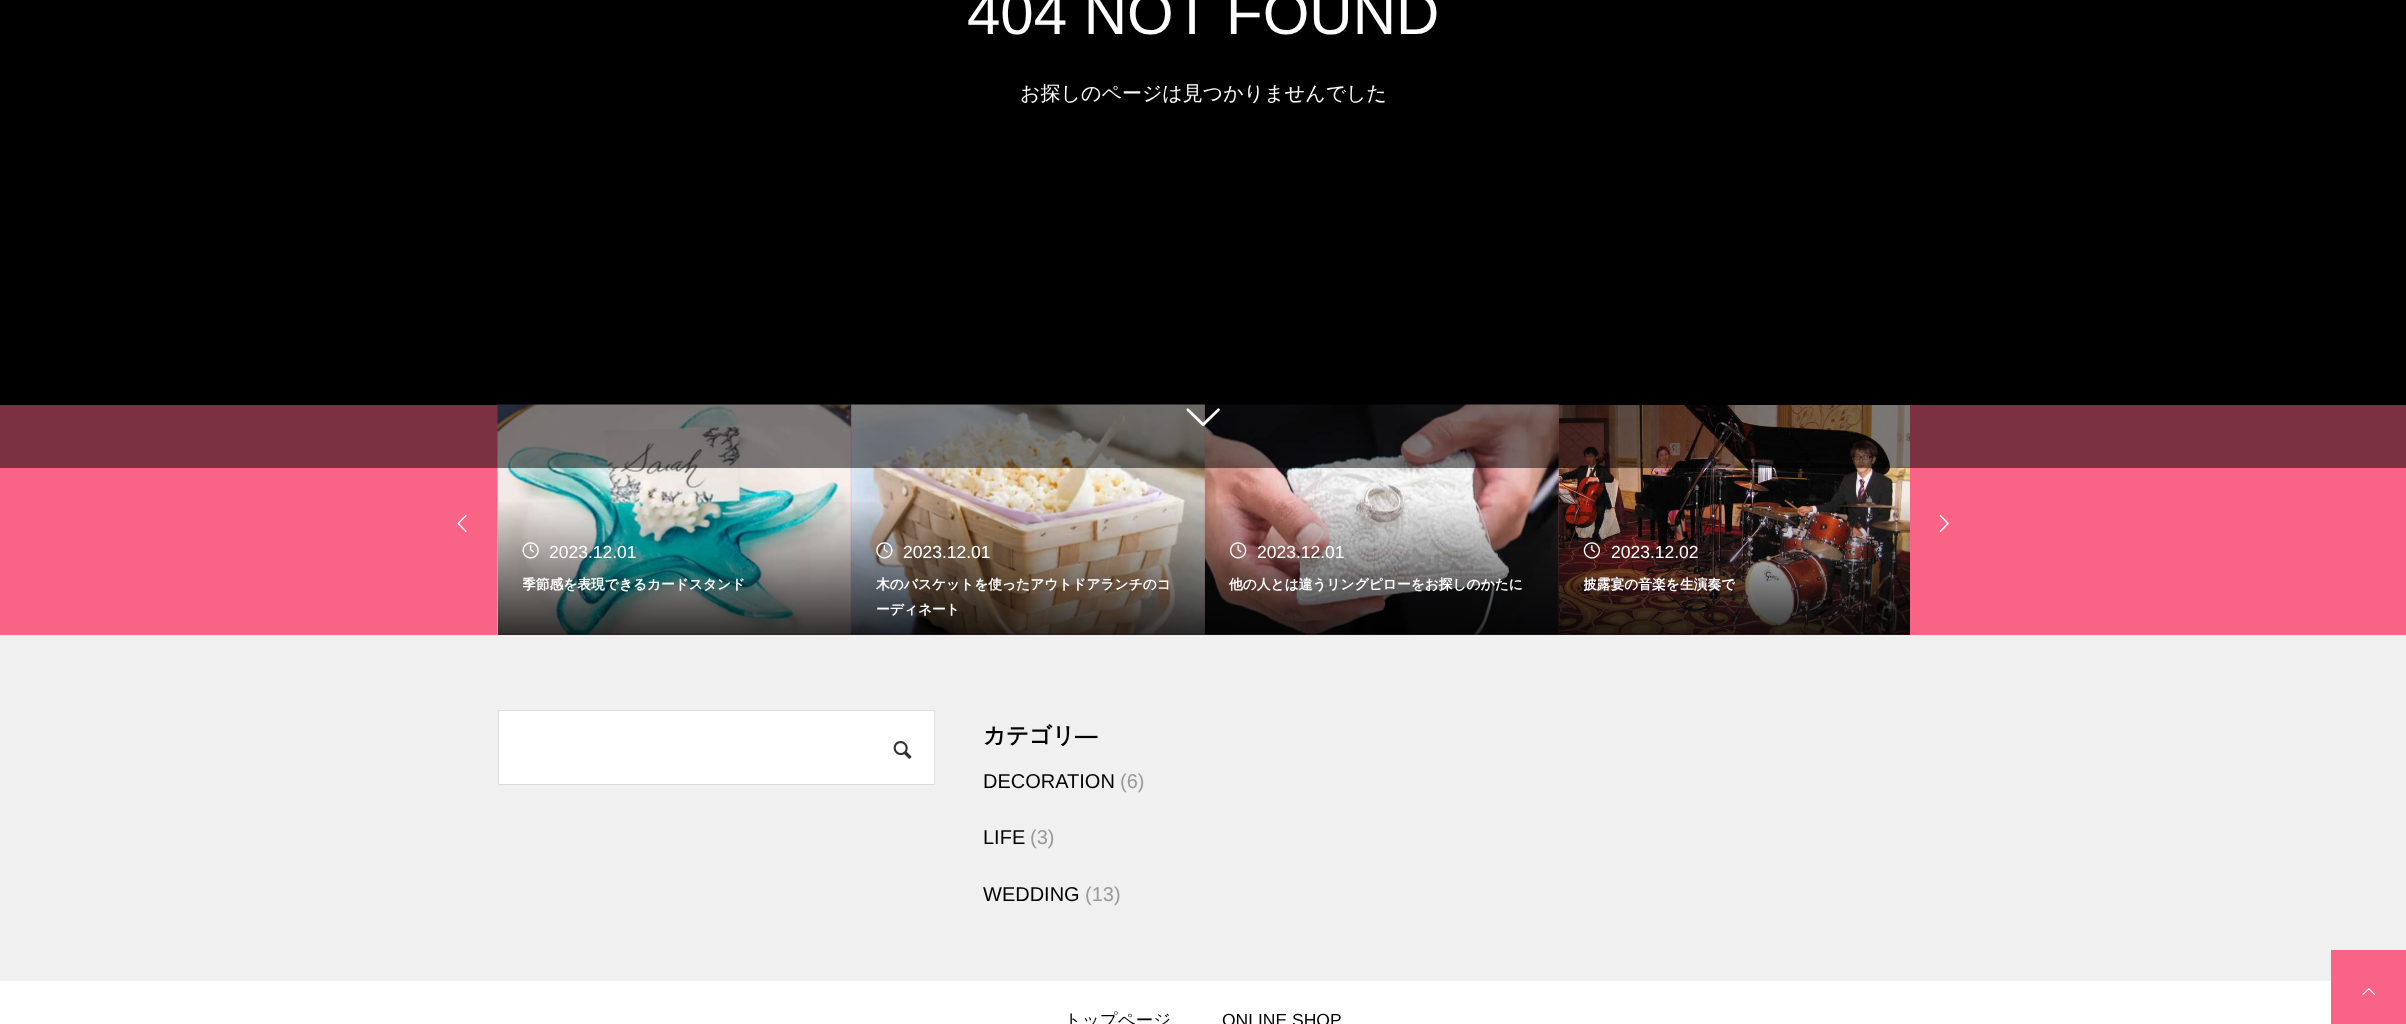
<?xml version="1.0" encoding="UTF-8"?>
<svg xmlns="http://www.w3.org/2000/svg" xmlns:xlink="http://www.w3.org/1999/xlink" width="2406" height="1024">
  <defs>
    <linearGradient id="g1" gradientUnits="userSpaceOnUse" x1="674" y1="498" x2="674" y2="635"><stop offset="0" stop-color="#000000" stop-opacity="0" /><stop offset="1" stop-color="#000000" stop-opacity="0.8" /></linearGradient>
    <linearGradient id="g2" gradientUnits="userSpaceOnUse" x1="1028" y1="498" x2="1028" y2="635"><stop offset="0" stop-color="#000000" stop-opacity="0" /><stop offset="1" stop-color="#000000" stop-opacity="0.8" /></linearGradient>
    <linearGradient id="g3" gradientUnits="userSpaceOnUse" x1="1382" y1="498" x2="1382" y2="635"><stop offset="0" stop-color="#000000" stop-opacity="0" /><stop offset="1" stop-color="#000000" stop-opacity="0.8" /></linearGradient>
    <linearGradient id="g4" gradientUnits="userSpaceOnUse" x1="1736" y1="498" x2="1736" y2="635"><stop offset="0" stop-color="#000000" stop-opacity="0" /><stop offset="1" stop-color="#000000" stop-opacity="0.8" /></linearGradient>
    <clipPath id="clip1"><rect x="523" y="573" width="222" height="50" /></clipPath>
    <clipPath id="clip2"><rect x="1584" y="573" width="151" height="50" /></clipPath>
  </defs>
  <rect width="100%" height="100%" fill="#ffffff" />
  <rect width="2406" height="405" fill="#000000" />
  <rect y="405" width="2406" height="230" fill="#f96386" />
  <image x="497" y="404" width="355" height="231" xlink:href="image4.png" />
  <image x="851" y="404" width="354" height="231" xlink:href="image6.png" />
  <image x="1205" y="404" width="354" height="231" xlink:href="image8.png" />
  <image x="1559" y="405" width="351" height="230" xlink:href="image10.png" />
  <rect y="404" width="2406" height="64" fill="#000000" fill-opacity="0.5" />
  <image x="1186" y="408" width="34" height="19" xlink:href="image1.png" />
  <image x="457" y="515" width="10" height="17" xlink:href="image2.png" />
  <image x="1939" y="515" width="10" height="17" xlink:href="image3.png" />
  <rect x="498" y="502" width="353" height="133" fill="url(#g1)" />
  <image x="522" y="542" width="17" height="17" xlink:href="image5.png" />
  <rect x="851" y="502" width="354" height="133" fill="url(#g2)" />
  <image x="876" y="542" width="17" height="17" xlink:href="image7.png" />
  <rect x="1205" y="502" width="354" height="133" fill="url(#g3)" />
  <image x="1230" y="542" width="17" height="17" xlink:href="image9.png" />
  <rect x="1559" y="502" width="351" height="133" fill="url(#g4)" />
  <image x="1583" y="542" width="17" height="17" xlink:href="image11.png" />
  <rect y="635" width="2406" height="346" fill="#f0f0f0" />
  <rect x="498.5" y="710.5" width="436" height="74" fill="#ffffff" stroke="#dddddd" />
  <image x="893" y="741" width="19" height="18" xlink:href="image12.png" />
  <rect x="2331" y="950" width="75" height="74" fill="#f96386" />
  <image x="2362" y="988" width="14" height="7" xlink:href="image13.png" />
  <text x="967" y="34" style="font-family: Liberation Sans; font-size: 60px; fill: #ffffff">404 NOT FOUND</text>
  <text x="1020" y="100" style="font-family: WenQuanYi Zen Hei; font-size: 20px; font-weight: 500; fill: #ffffff">お探しのページは見つかりませんでした</text>
  <text x="549" y="558" style="font-family: Liberation Sans; font-size: 17.5px; fill: #ffffff">2023.12.01</text>
  <g clip-path="url(#clip1)">
    <text x="522" y="589" style="font-family: WenQuanYi Zen Hei; font-size: 13.75px; font-weight: bold; fill: #ffffff">季節感を表現できるカードスタンド</text>
  </g>
  <text x="903" y="558" style="font-family: Liberation Sans; font-size: 17.5px; fill: #ffffff">2023.12.01</text>
  <text x="876" y="589" style="font-family: WenQuanYi Zen Hei; font-size: 13.75px; font-weight: bold; fill: #ffffff">木のバスケットを使ったアウトドアランチのコ</text>
  <text x="876" y="614" style="font-family: WenQuanYi Zen Hei; font-size: 13.75px; font-weight: bold; fill: #ffffff">ーディネート</text>
  <text x="1257" y="558" style="font-family: Liberation Sans; font-size: 17.5px; fill: #ffffff">2023.12.01</text>
  <text x="1229" y="589" style="font-family: WenQuanYi Zen Hei; font-size: 13.75px; font-weight: bold; fill: #ffffff">他の人とは違うリングピローをお探しのかたに</text>
  <text x="1611" y="558" style="font-family: Liberation Sans; font-size: 17.5px; fill: #ffffff">2023.12.02</text>
  <g clip-path="url(#clip2)">
    <text x="1583" y="589" style="font-family: WenQuanYi Zen Hei; font-size: 13.75px; font-weight: bold; fill: #ffffff">披露宴の音楽を生演奏で</text>
  </g>
  <text x="983" y="743" style="font-family: WenQuanYi Zen Hei; font-size: 22.5px; font-weight: bold; fill: #000000">カテゴリ</text>
  <text x="1075" y="743" style="font-family: Liberation Sans; font-size: 22.5px; font-weight: bold; fill: #000000">―</text>
  <text x="983" y="788" style="font-family: Liberation Sans; font-size: 20px; fill: #000000">DECORATION</text>
  <text x="1120" y="788" style="font-family: Liberation Sans; font-size: 20px; fill: #999999">(6)</text>
  <text x="983" y="844" style="font-family: Liberation Sans; font-size: 20px; fill: #000000">LIFE</text>
  <text x="1030" y="844" style="font-family: Liberation Sans; font-size: 20px; fill: #999999">(3)</text>
  <text x="983" y="901" style="font-family: Liberation Sans; font-size: 20px; fill: #000000">WEDDING</text>
  <text x="1085" y="901" style="font-family: Liberation Sans; font-size: 20px; fill: #999999">(13)</text>
  <text x="1064" y="1026" style="font-family: WenQuanYi Zen Hei; font-size: 17.5px; font-weight: 500; fill: #000000">トップページ</text>
  <text x="1222" y="1026" style="font-family: Liberation Sans; font-size: 17.5px; fill: #000000">ONLINE SHOP</text>
</svg>
